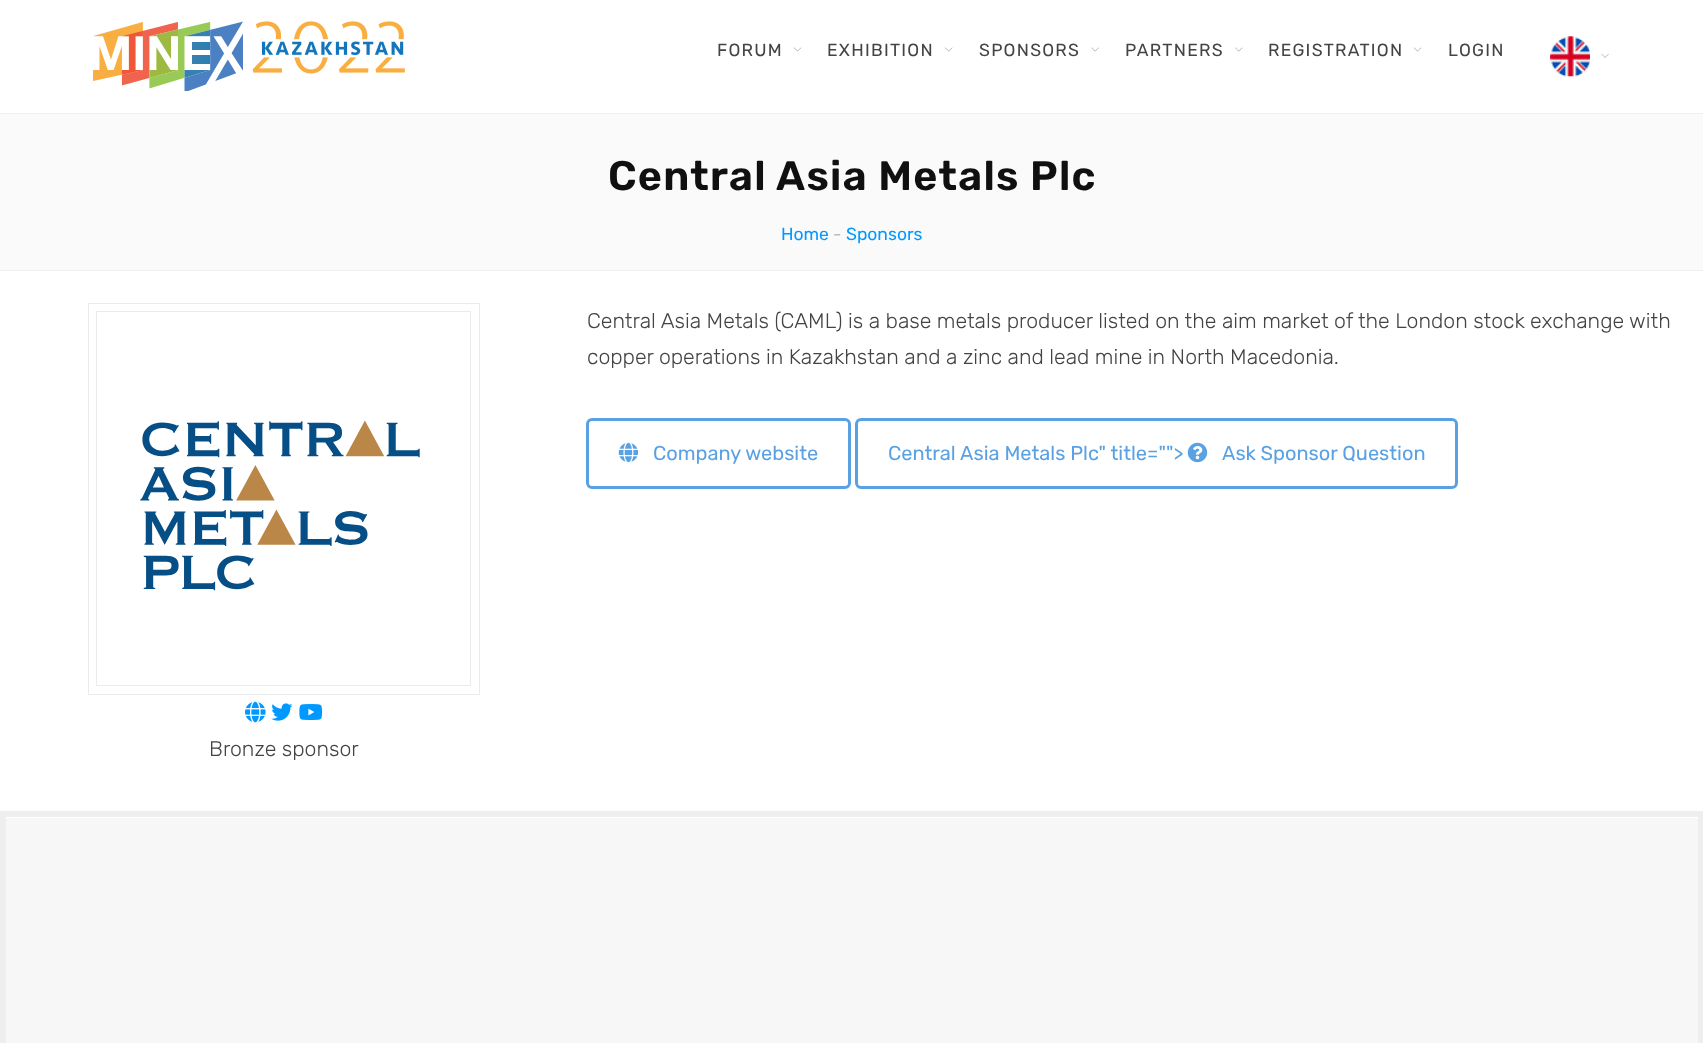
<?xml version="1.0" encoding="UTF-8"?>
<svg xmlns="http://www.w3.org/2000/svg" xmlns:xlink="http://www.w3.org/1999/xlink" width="1703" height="1043">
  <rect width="100%" height="100%" fill="#ffffff" />
  <image x="93" y="21" width="312" height="70" xlink:href="image1.png" />
  <image x="793" y="47" width="9" height="5" xlink:href="image2.png" />
  <image x="945" y="47" width="8" height="5" xlink:href="image3.png" />
  <image x="1091" y="47" width="8" height="5" xlink:href="image4.png" />
  <image x="1235" y="47" width="8" height="5" xlink:href="image3.png" />
  <image x="1413" y="47" width="9" height="5" xlink:href="image2.png" />
  <image x="1550" y="36" width="40" height="41" xlink:href="image5.png" />
  <image x="1601" y="53" width="8" height="5" xlink:href="image6.png" />
  <rect y="114" width="1703" height="156" fill="#fafafa" />
  <rect y="113" width="1703" height="1" fill="#eeeeee" />
  <rect y="270" width="1703" height="1" fill="#eeeeee" />
  <rect x="587.5" y="419.5" width="262" height="68" rx="4.5" fill="none" stroke="#5aa1e3" stroke-width="3" />
  <image x="618" y="442" width="21" height="21" xlink:href="image7.png" />
  <rect x="856.5" y="419.5" width="600" height="68" rx="4.5" fill="none" stroke="#5aa1e3" stroke-width="3" />
  <image x="1187" y="442" width="21" height="21" xlink:href="image8.png" />
  <rect x="88.5" y="303.5" width="391" height="391" fill="none" stroke="#ebebeb" />
  <rect x="96.5" y="311.5" width="374" height="374" fill="none" stroke="#ebebeb" />
  <image x="140" y="420" width="280" height="171" xlink:href="image9.png" />
  <image x="245" y="701" width="21" height="22" xlink:href="image10.png" />
  <image x="271" y="703" width="22" height="18" xlink:href="image11.png" />
  <image x="299" y="704" width="24" height="16" xlink:href="image12.png" />
  <rect x="3" y="814" width="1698" height="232" fill="none" stroke="#eeeeee" stroke-width="6" />
  <rect x="6" y="818" width="1692" height="225" fill="#f7f7f7" />
  <text x="717" y="56" style="font-family: Rubik; font-size: 17.5px; letter-spacing: 1.25px; fill: #444444">FORUM</text>
  <text x="827" y="56" style="font-family: Rubik; font-size: 17.5px; letter-spacing: 1.25px; fill: #444444">EXHIBITION</text>
  <text x="979" y="56" style="font-family: Rubik; font-size: 17.5px; letter-spacing: 1.25px; fill: #444444">SPONSORS</text>
  <text x="1125" y="56" style="font-family: Rubik; font-size: 17.5px; letter-spacing: 1.25px; fill: #444444">PARTNERS</text>
  <text x="1268" y="56" style="font-family: Rubik; font-size: 17.5px; letter-spacing: 1.25px; fill: #444444">REGISTRATION</text>
  <text x="1448" y="56" style="font-family: Rubik; font-size: 17.5px; letter-spacing: 1.25px; fill: #444444">LOGIN</text>
  <text x="608" y="190" style="font-family: Rubik; font-size: 41.25px; font-weight: 600; letter-spacing: 1.25px; fill: #101010">Central Asia Metals Plc</text>
  <text x="781" y="240" style="font-family: Rubik; font-size: 17.5px; fill: #0099ff">Home</text>
  <text x="833" y="240" style="font-family: Rubik; font-size: 17.5px; fill: #bbbbbb">-</text>
  <text x="846" y="240" style="font-family: Rubik; font-size: 17.5px; fill: #0099ff">Sponsors</text>
  <text x="587" y="328" style="font-family: Rubik; font-size: 21.25px; font-weight: 300; fill: #444444">Central Asia Metals (CAML) is a base metals producer listed on the aim market of the London stock exchange with</text>
  <text x="587" y="364" style="font-family: Rubik; font-size: 21.25px; font-weight: 300; fill: #444444">copper operations in Kazakhstan and a zinc and lead mine in North Macedonia.</text>
  <text x="653" y="460" style="font-family: Rubik; font-size: 20px; fill: #5aa1e3">Company website</text>
  <text x="888" y="460" style="font-family: Rubik; font-size: 20px; fill: #5aa1e3">Central Asia Metals Plc" title=""&gt;</text>
  <text x="1222" y="460" style="font-family: Rubik; font-size: 20px; fill: #5aa1e3">Ask Sponsor Question</text>
  <text x="209" y="756" style="font-family: Rubik; font-size: 21.25px; font-weight: 300; fill: #444444">Bronze sponsor</text>
</svg>
